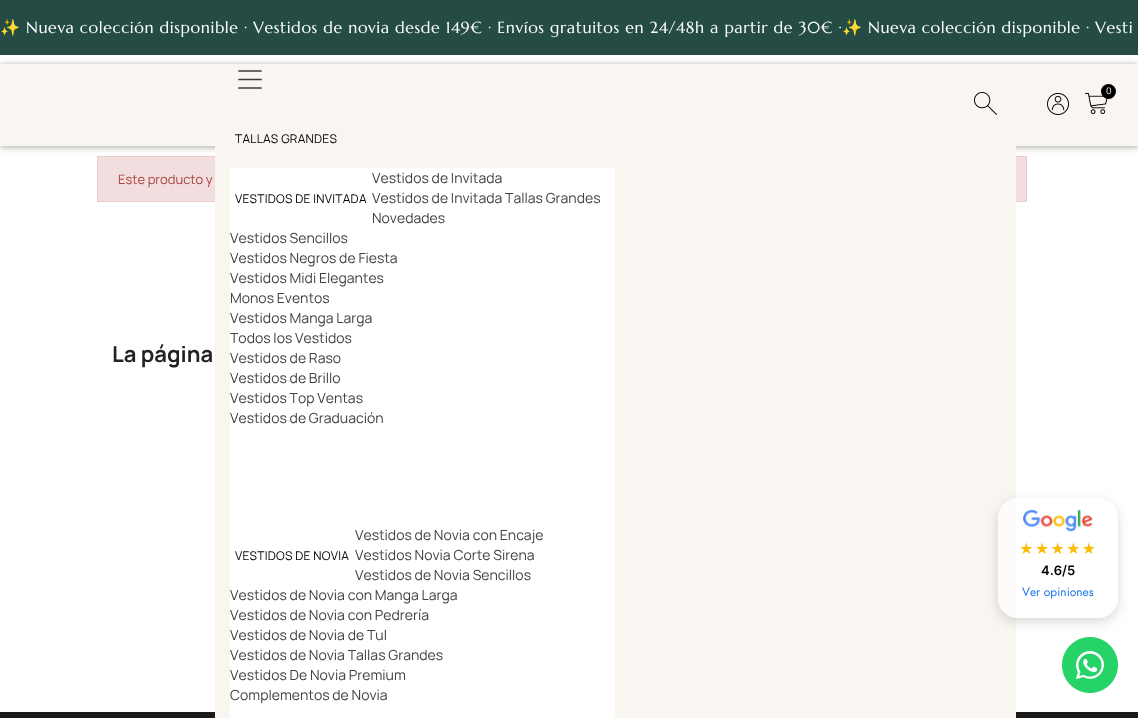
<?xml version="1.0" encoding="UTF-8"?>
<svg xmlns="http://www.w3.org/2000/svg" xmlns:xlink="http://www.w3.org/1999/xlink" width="1138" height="718">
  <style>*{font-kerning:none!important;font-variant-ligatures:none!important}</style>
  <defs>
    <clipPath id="clip1"><path d="M 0 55 h 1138 v 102 h -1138 z m 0 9 h 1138 v 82 h -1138 z" clip-rule="evenodd" /></clipPath>
    <clipPath id="clip2"><path d="M 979 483 h 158 v 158 h -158 z m 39 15 h 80 c 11 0 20 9 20 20 v 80 c 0 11 -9 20 -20 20 h -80 c -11 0 -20 -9 -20 -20 v -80 c 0 -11 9 -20 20 -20 z" clip-rule="evenodd" /></clipPath>
  </defs>
  <rect width="100%" height="100%" fill="#ffffff" />
  <rect x="97.5" y="156.5" width="929" height="45" fill="#f2dede" stroke="#ebcccc" />
  <rect y="65" width="1138" height="82" fill="#9e9a94" fill-opacity="0.5" filter="blur(3px)" />
  <rect y="64" width="1138" height="82" fill="#f9f5f1" />
  <g clip-path="url(#clip1)">
    <rect y="65" width="1138" height="82" fill="#9e9a94" fill-opacity="0.5" filter="blur(3px)" />
  </g>
  <rect width="1138" height="55" fill="#244c45" />
  <image x="1085" y="92" width="23" height="22" xlink:href="image1.png" />
  <circle cx="1108.5" cy="91.5" r="7.5" fill="#000000" />
  <image x="1047" y="93" width="22" height="22" xlink:href="image2.png" />
  <image x="974" y="92" width="23" height="23" xlink:href="image3.png" />
  <rect y="712" width="1138" height="6" fill="#1b1a18" />
  <rect x="215" y="146" width="801" height="572" fill="#f9f5f1" />
  <path d="M 261 71 h -22 m 22 8.5 h -22 m 22 8.5 h -22" fill="none" stroke="#3b3b3b" stroke-width="1.7" stroke-linecap="round" stroke-linejoin="round" />
  <rect x="230" y="168" width="385" height="550" fill="#ffffff" />
  <g clip-path="url(#clip2)">
    <rect x="998" y="502" width="120" height="120" rx="20" fill="#000000" fill-opacity="0.15" filter="blur(6px)" />
  </g>
  <rect x="998" y="498" width="120" height="120" rx="20" fill="#ffffff" fill-opacity="0.65" />
  <rect x="998.5" y="498.5" width="119" height="119" rx="19.5" fill="none" stroke="#ffffff" stroke-opacity="0.4" />
  <image x="1023" y="510" width="70" height="22" xlink:href="image4.png" />
  <image x="1062" y="637" width="56" height="56" xlink:href="image5.png" />
  <text x="0" y="33" style="font-family: Noto Color Emoji; font-size: 16px; letter-spacing: 0.6px; fill: #ffffff">✨</text>
  <text x="26" y="33" style="font-family: Marcellus; font-size: 16px; letter-spacing: 0.6px; fill: #ffffff">Nueva colección disponible · Vestidos de novia desde 149€ · Envíos gratuitos en 24/48h a partir de 30€ ·</text>
  <text x="842" y="33" style="font-family: Noto Color Emoji; font-size: 16px; letter-spacing: 0.6px; fill: #ffffff">✨</text>
  <text x="868" y="33" style="font-family: Marcellus; font-size: 16px; letter-spacing: 0.6px; fill: #ffffff">Nueva colección disponible · Vesti</text>
  <text x="1106" y="94" style="font-family: Manrope; font-size: 9px; fill: #ffffff">0</text>
  <text x="235" y="143" style="font-family: Manrope; font-size: 12px; letter-spacing: 0.25px; fill: #000000">TALLAS GRANDES</text>
  <text x="372" y="183" style="font-family: Manrope; font-size: 14px; fill: #414141">Vestidos de Invitada</text>
  <text x="372" y="203" style="font-family: Manrope; font-size: 14px; fill: #414141">Vestidos de Invitada Tallas Grandes</text>
  <text x="372" y="223" style="font-family: Manrope; font-size: 14px; fill: #414141">Novedades</text>
  <text x="230" y="243" style="font-family: Manrope; font-size: 14px; fill: #414141">Vestidos Sencillos</text>
  <text x="230" y="263" style="font-family: Manrope; font-size: 14px; fill: #414141">Vestidos Negros de Fiesta</text>
  <text x="230" y="283" style="font-family: Manrope; font-size: 14px; fill: #414141">Vestidos Midi Elegantes</text>
  <text x="230" y="303" style="font-family: Manrope; font-size: 14px; fill: #414141">Monos Eventos</text>
  <text x="230" y="323" style="font-family: Manrope; font-size: 14px; fill: #414141">Vestidos Manga Larga</text>
  <text x="230" y="343" style="font-family: Manrope; font-size: 14px; fill: #414141">Todos los Vestidos</text>
  <text x="230" y="363" style="font-family: Manrope; font-size: 14px; fill: #414141">Vestidos de Raso</text>
  <text x="230" y="383" style="font-family: Manrope; font-size: 14px; fill: #414141">Vestidos de Brillo</text>
  <text x="230" y="403" style="font-family: Manrope; font-size: 14px; fill: #414141">Vestidos Top Ventas</text>
  <text x="230" y="423" style="font-family: Manrope; font-size: 14px; fill: #414141">Vestidos de Graduación</text>
  <text x="235" y="203" style="font-family: Manrope; font-size: 12px; letter-spacing: 0.25px; fill: #000000">VESTIDOS DE INVITADA</text>
  <text x="355" y="540" style="font-family: Manrope; font-size: 14px; fill: #414141">Vestidos de Novia con Encaje</text>
  <text x="355" y="560" style="font-family: Manrope; font-size: 14px; fill: #414141">Vestidos Novia Corte Sirena</text>
  <text x="355" y="580" style="font-family: Manrope; font-size: 14px; fill: #414141">Vestidos de Novia Sencillos</text>
  <text x="230" y="600" style="font-family: Manrope; font-size: 14px; fill: #414141">Vestidos de Novia con Manga Larga</text>
  <text x="230" y="620" style="font-family: Manrope; font-size: 14px; fill: #414141">Vestidos de Novia con Pedrería</text>
  <text x="230" y="640" style="font-family: Manrope; font-size: 14px; fill: #414141">Vestidos de Novia de Tul</text>
  <text x="230" y="660" style="font-family: Manrope; font-size: 14px; fill: #414141">Vestidos de Novia Tallas Grandes</text>
  <text x="230" y="680" style="font-family: Manrope; font-size: 14px; fill: #414141">Vestidos De Novia Premium</text>
  <text x="230" y="700" style="font-family: Manrope; font-size: 14px; fill: #414141">Complementos de Novia</text>
  <text x="235" y="560" style="font-family: Manrope; font-size: 12px; letter-spacing: 0.25px; fill: #000000">VESTIDOS DE NOVIA</text>
  <text x="118" y="184" style="font-family: Manrope; font-size: 13px; fill: #a94442">Este producto y</text>
  <text x="112" y="362" style="font-family: Manrope; font-size: 22px; font-weight: bold; fill: #232323">La página</text>
  <text x="1019" y="554" style="font-family: Inter; font-size: 14px; letter-spacing: 1px; fill: #fbbc04">★★★★★</text>
  <text x="1041" y="575" style="font-family: Inter; font-size: 13px; font-weight: 600; fill: #000000">4.6/5</text>
  <text x="1022" y="596" style="font-family: Jost; font-size: 12px; fill: #1a73e8">Ver opiniones</text>
</svg>
